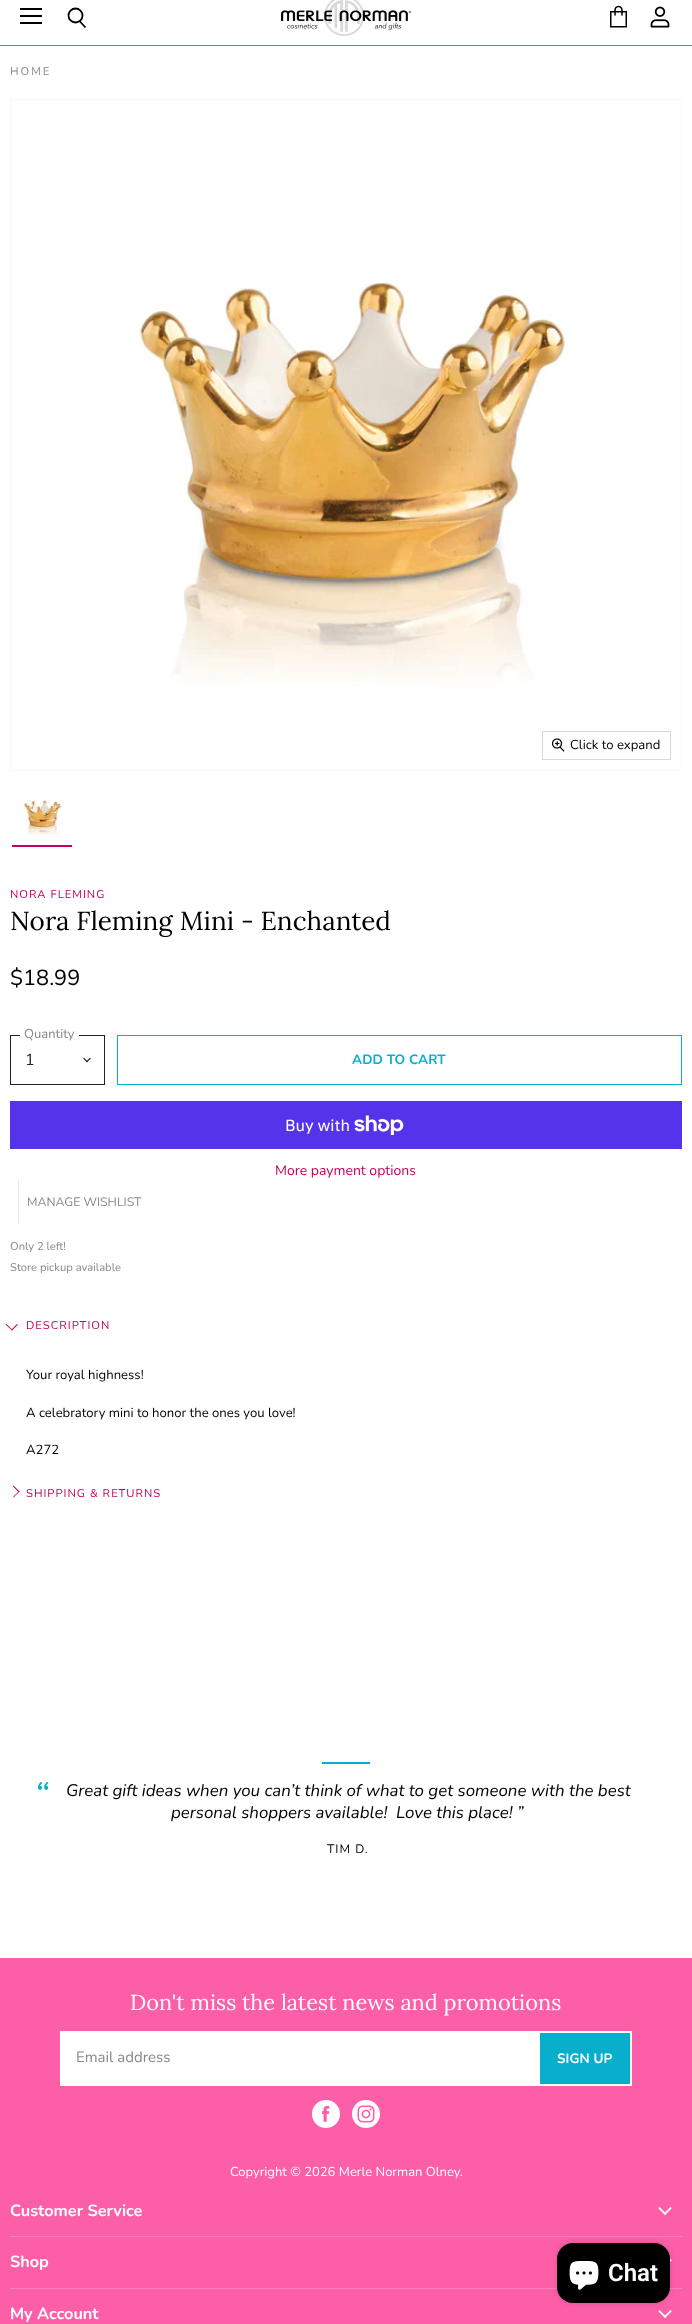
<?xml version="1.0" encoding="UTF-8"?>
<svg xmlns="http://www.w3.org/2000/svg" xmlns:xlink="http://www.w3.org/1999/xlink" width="692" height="2324">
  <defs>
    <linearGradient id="g1" gradientUnits="userSpaceOnUse" x1="346" y1="1764" x2="346" y2="1748"><stop offset="0" stop-color="#07afcc" /><stop offset="0.12" stop-color="#07afcc" /><stop offset="0.12" stop-color="#ffffff" /><stop offset="1" stop-color="#ffffff" /></linearGradient>
  </defs>
  <rect width="100%" height="100%" fill="#ffffff" />
  <rect y="45" width="692" height="1" fill="#07afcc" />
  <rect x="20" y="8" width="22" height="2" fill="#000000" />
  <rect x="20" y="15" width="22" height="2" fill="#000000" />
  <rect x="20" y="22" width="22" height="2" fill="#000000" />
  <path d="M 85.5 27.5 l -6 -6.5" fill="none" stroke="#000000" stroke-width="1.8" />
  <circle cx="75.5" cy="15.5" r="7" fill="none" stroke="#000000" stroke-width="1.8" />
  <image x="281" y="0" width="130" height="36" xlink:href="image1.png" />
  <image x="610" y="5" width="17" height="23" xlink:href="image2.png" />
  <image x="650" y="6" width="20" height="22" xlink:href="image3.png" />
  <rect x="10.5" y="99.5" width="671" height="671" fill="none" stroke="#fafafa" />
  <image x="136" y="282" width="430" height="404" xlink:href="image4.png" />
  <rect x="542.5" y="731.5" width="128" height="28" fill="none" stroke="#d9d9d9" />
  <image x="552" y="738" width="13" height="14" xlink:href="image5.png" />
  <rect x="12" y="845" width="60" height="2" fill="#c7005d" />
  <image x="23" y="798" width="39" height="38" xlink:href="image6.png" />
  <rect x="10.5" y="1035.5" width="94" height="49" fill="none" stroke="#212121" />
  <rect x="20" y="1035" width="59" height="1" fill="#ffffff" />
  <image x="83" y="1057" width="8" height="6" xlink:href="image7.png" />
  <rect x="117.5" y="1035.5" width="564" height="49" fill="none" stroke="#07afcc" />
  <rect x="10" y="1101" width="672" height="48" fill="#5433eb" />
  <image x="354" y="1115" width="50" height="20" xlink:href="image8.png" />
  <rect x="18" y="1179" width="1" height="46" fill="#eaeaea" />
  <path d="M 17 1324 l 1 0.5 l -6 6 l -1 -0.5 z" fill="#c7005d" />
  <path d="M 6.5 1324 l 6 6 l -0.5 0.5 l -6.5 -6 z" fill="#c7005d" />
  <path d="M 13 1486.5 l 0.5 -1 l 6 6 l -0.5 1 z" fill="#c7005d" />
  <path d="M 13 1497 l 6 -6 l 0.5 0.5 l -6 6 z" fill="#c7005d" />
  <rect x="322" y="1762" width="48" height="2" fill="url(#g1)" />
  <rect y="1958" width="692" height="366" fill="#fc5ea8" />
  <rect x="60" y="2031" width="572" height="55" fill="#ffffff" />
  <rect x="540" y="2033" width="90" height="51" fill="#07afcc" />
  <circle cx="326" cy="2114" r="14" fill="#ffffff" />
  <image x="322" y="2106" width="8" height="16" xlink:href="image9.png" />
  <circle cx="366" cy="2114" r="14" fill="#ffffff" />
  <image x="357" y="2105" width="18" height="18" xlink:href="image10.png" />
  <rect x="10" y="2236" width="672" height="1" fill="#fd7eb9" />
  <image x="658" y="2207" width="14" height="8" xlink:href="image11.png" />
  <rect x="10" y="2288" width="672" height="1" fill="#fd7eb9" />
  <image x="670" y="2259" width="2" height="3" xlink:href="image12.png" />
  <image x="658" y="2310" width="14" height="8" xlink:href="image11.png" />
  <rect x="557" y="2243" width="113" height="60" rx="16" fill="#000000" fill-opacity="0.15" filter="blur(2.5px)" />
  <rect x="557" y="2243" width="113" height="60" rx="16" fill="#000000" />
  <image x="569" y="2261" width="30" height="29" xlink:href="image13.png" />
  <text x="10" y="75" style="font-family: Nunito; font-size: 11.25px; letter-spacing: 2px; fill: #888888">HOME</text>
  <text x="570" y="749" style="font-family: Nunito; font-size: 13.1px; fill: #000000">Click to expand</text>
  <text x="10" y="898" style="font-family: Nunito; font-size: 11.25px; letter-spacing: 1px; fill: #c7005d">NORA FLEMING</text>
  <text x="10" y="930" style="font-family: Lora; font-size: 26.1px; fill: #000000">Nora Fleming Mini - Enchanted</text>
  <text x="10" y="985" style="font-family: Nunito; font-size: 21.75px; fill: #000000">$18.99</text>
  <text x="24" y="1038" style="font-family: Nunito; font-size: 13px; fill: #888888">Quantity</text>
  <text x="25" y="1065" style="font-family: Nunito; font-size: 16px; fill: #212121">1</text>
  <text x="352" y="1064" style="font-family: Nunito; font-size: 13.5px; font-weight: bold; letter-spacing: 0.1px; fill: #07afcc">ADD TO CART</text>
  <text x="285" y="1131" style="font-family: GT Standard; font-size: 16px; fill: #ffffff">Buy with</text>
  <text x="275" y="1175" style="font-family: Nunito; font-size: 14px; fill: #c7005d">More payment options</text>
  <text x="27" y="1206" style="font-family: Nunito; font-size: 12.25px; fill: #888888">MANAGE WISHLIST</text>
  <text x="10" y="1250" style="font-family: Nunito; font-size: 11.25px; fill: #888888">Only 2 left!</text>
  <text x="10" y="1271" style="font-family: Nunito; font-size: 11.25px; fill: #888888">Store pickup available</text>
  <text x="26" y="1329" style="font-family: Nunito; font-size: 11.25px; letter-spacing: 1px; fill: #c7005d">DESCRIPTION</text>
  <text x="26" y="1379" style="font-family: Nunito; font-size: 13.1px; fill: #000000">Your royal highness!</text>
  <text x="26" y="1417" style="font-family: Nunito; font-size: 13.1px; fill: #000000">A celebratory mini to honor the ones you love!</text>
  <text x="26" y="1454" style="font-family: Nunito; font-size: 13.1px; fill: #000000">A272</text>
  <text x="26" y="1497" style="font-family: Nunito; font-size: 11.25px; letter-spacing: 1px; fill: #c7005d">SHIPPING &amp; RETURNS</text>
  <text x="34" y="1808" style="font-family: Nunito; font-size: 37px; font-style: italic; fill: #07afcc">“</text>
  <text x="66" y="1796" style="font-family: Nunito; font-size: 16.9px; font-style: italic; fill: #000000">Great gift ideas when you can’t think of what to get someone with the best</text>
  <text x="171" y="1818" style="font-family: Nunito; font-size: 16.9px; font-style: italic; fill: #000000" xml:space="preserve">personal shoppers available!  Love this place! ”</text>
  <text x="327" y="1853" style="font-family: Nunito; font-size: 12.25px; letter-spacing: 1px; fill: #000000">TIM D.</text>
  <text x="130" y="2010" style="font-family: Lora; font-size: 21.75px; fill: #ffffff">Don't miss the latest news and promotions</text>
  <text x="76" y="2062" style="font-family: Nunito; font-size: 15px; fill: #888888">Email address</text>
  <text x="557" y="2063" style="font-family: Nunito; font-size: 13.5px; font-weight: bold; letter-spacing: 0.1px; fill: #ffffff">SIGN UP</text>
  <text x="230" y="2176" style="font-family: Nunito; font-size: 13px; fill: #ffffff">Copyright © 2026 Merle Norman Olney.</text>
  <text x="10" y="2216" style="font-family: Nunito; font-size: 16.25px; font-weight: bold; fill: #ffffff">Customer Service</text>
  <text x="10" y="2267" style="font-family: Nunito; font-size: 16.25px; font-weight: bold; fill: #ffffff">Shop</text>
  <text x="10" y="2319" style="font-family: Nunito; font-size: 16.25px; font-weight: bold; fill: #ffffff">My Account</text>
  <text x="608" y="2281" style="font-family: Roboto; font-size: 24px; font-weight: 600; fill: #ffffff">Chat</text>
</svg>
